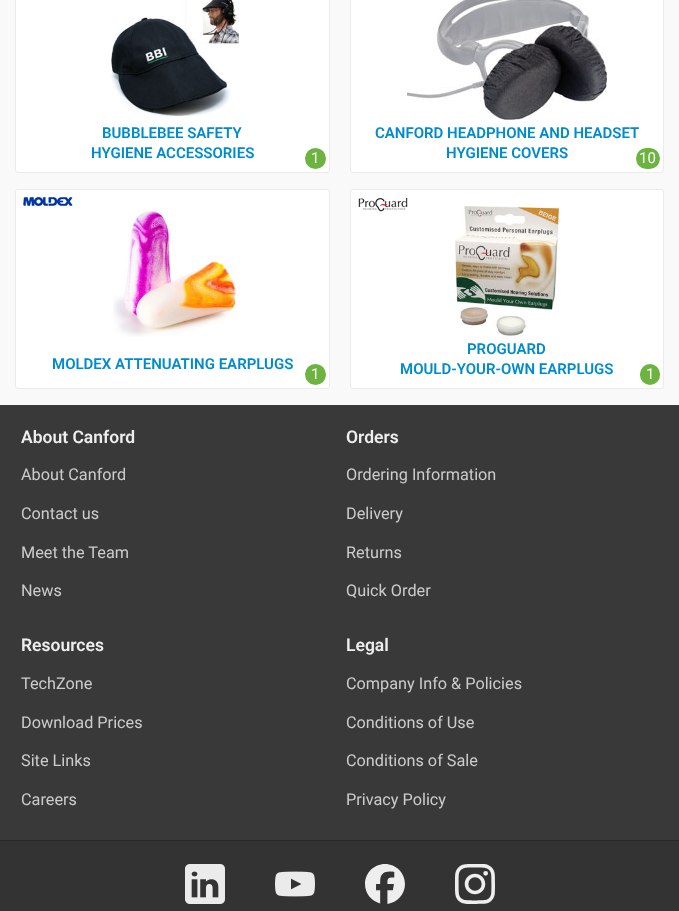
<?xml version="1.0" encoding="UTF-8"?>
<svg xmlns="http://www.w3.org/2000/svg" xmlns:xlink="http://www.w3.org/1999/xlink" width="679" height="911">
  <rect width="100%" height="100%" fill="#f9f9f9" />
  <rect x="15.5" y="-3.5" width="314" height="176" rx="2.5" fill="#ffffff" stroke="#ebebeb" />
  <image x="111" y="0" width="128" height="117" xlink:href="image1.png" />
  <circle cx="315.5" cy="158.5" r="10.5" fill="#6cb33f" />
  <rect x="350.5" y="-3.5" width="313" height="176" rx="2.5" fill="#ffffff" stroke="#ebebeb" />
  <image x="407" y="0" width="200" height="120" xlink:href="image2.png" />
  <rect x="636" y="148" width="24" height="21" rx="10.5" fill="#6cb33f" />
  <rect x="15.5" y="189.5" width="314" height="199" rx="2.5" fill="#ffffff" stroke="#ebebeb" />
  <image x="23" y="197" width="50" height="9" xlink:href="image3.png" />
  <image x="113" y="210" width="123" height="127" xlink:href="image4.png" />
  <circle cx="315.5" cy="374.5" r="10.5" fill="#6cb33f" />
  <rect x="350.5" y="189.5" width="313" height="199" rx="2.5" fill="#ffffff" stroke="#ebebeb" />
  <image x="358" y="197" width="50" height="15" xlink:href="image5.png" />
  <image x="455" y="206" width="104" height="130" xlink:href="image6.png" />
  <rect x="640" y="364" width="20" height="21" rx="10" fill="#6cb33f" />
  <rect y="405" width="679" height="435" fill="#393939" />
  <rect y="841" width="679" height="70" fill="#333333" />
  <rect y="840" width="679" height="1" fill="#292929" />
  <image x="185" y="864" width="40" height="40" xlink:href="image7.png" />
  <image x="275" y="871" width="40" height="26" xlink:href="image8.png" />
  <image x="365" y="864" width="40" height="40" xlink:href="image9.png" />
  <image x="455" y="864" width="40" height="40" xlink:href="image10.png" />
  <text x="102" y="138" style="font-family: Roboto; font-size: 15px; font-weight: 600; fill: #008ccc">BUBBLEBEE SAFETY</text>
  <text x="91" y="158" style="font-family: Roboto; font-size: 15px; font-weight: 600; fill: #008ccc">HYGIENE ACCESSORIES</text>
  <text x="311" y="163" style="font-family: Roboto; font-size: 15px; fill: #ffffff">1</text>
  <text x="375" y="138" style="font-family: Roboto; font-size: 15px; font-weight: 600; fill: #008ccc">CANFORD HEADPHONE AND HEADSET</text>
  <text x="446" y="158" style="font-family: Roboto; font-size: 15px; font-weight: 600; fill: #008ccc">HYGIENE COVERS</text>
  <text x="639" y="163" style="font-family: Roboto; font-size: 15px; fill: #ffffff">10</text>
  <text x="52" y="369" style="font-family: Roboto; font-size: 15px; font-weight: 600; fill: #008ccc">MOLDEX ATTENUATING EARPLUGS</text>
  <text x="311" y="379" style="font-family: Roboto; font-size: 15px; fill: #ffffff">1</text>
  <text x="467" y="354" style="font-family: Roboto; font-size: 15px; font-weight: 600; fill: #008ccc">PROGUARD</text>
  <text x="400" y="374" style="font-family: Roboto; font-size: 15px; font-weight: 600; fill: #008ccc">MOULD‑YOUR‑OWN EARPLUGS</text>
  <text x="646" y="379" style="font-family: Roboto; font-size: 15px; fill: #ffffff">1</text>
  <text x="21" y="443" style="font-family: Roboto; font-size: 17.5px; font-weight: 600; fill: #eeeeee">About Canford</text>
  <text x="21" y="480" style="font-family: Roboto; font-size: 16.25px; fill: #cccccc">About Canford</text>
  <text x="21" y="519" style="font-family: Roboto; font-size: 16.25px; fill: #cccccc">Contact us</text>
  <text x="21" y="558" style="font-family: Roboto; font-size: 16.25px; fill: #cccccc">Meet the Team</text>
  <text x="21" y="596" style="font-family: Roboto; font-size: 16.25px; fill: #cccccc">News</text>
  <text x="346" y="443" style="font-family: Roboto; font-size: 17.5px; font-weight: 600; fill: #eeeeee">Orders</text>
  <text x="346" y="480" style="font-family: Roboto; font-size: 16.25px; fill: #cccccc">Ordering Information</text>
  <text x="346" y="519" style="font-family: Roboto; font-size: 16.25px; fill: #cccccc">Delivery</text>
  <text x="346" y="558" style="font-family: Roboto; font-size: 16.25px; fill: #cccccc">Returns</text>
  <text x="346" y="596" style="font-family: Roboto; font-size: 16.25px; fill: #cccccc">Quick Order</text>
  <text x="21" y="651" style="font-family: Roboto; font-size: 17.5px; font-weight: 600; fill: #eeeeee">Resources</text>
  <text x="21" y="689" style="font-family: Roboto; font-size: 16.25px; fill: #cccccc">TechZone</text>
  <text x="21" y="728" style="font-family: Roboto; font-size: 16.25px; fill: #cccccc">Download Prices</text>
  <text x="21" y="766" style="font-family: Roboto; font-size: 16.25px; fill: #cccccc">Site Links</text>
  <text x="21" y="805" style="font-family: Roboto; font-size: 16.25px; fill: #cccccc">Careers</text>
  <text x="346" y="651" style="font-family: Roboto; font-size: 17.5px; font-weight: 600; fill: #eeeeee">Legal</text>
  <text x="346" y="689" style="font-family: Roboto; font-size: 16.25px; fill: #cccccc">Company Info &amp; Policies</text>
  <text x="346" y="728" style="font-family: Roboto; font-size: 16.25px; fill: #cccccc">Conditions of Use</text>
  <text x="346" y="766" style="font-family: Roboto; font-size: 16.25px; fill: #cccccc">Conditions of Sale</text>
  <text x="346" y="805" style="font-family: Roboto; font-size: 16.25px; fill: #cccccc">Privacy Policy</text>
</svg>
